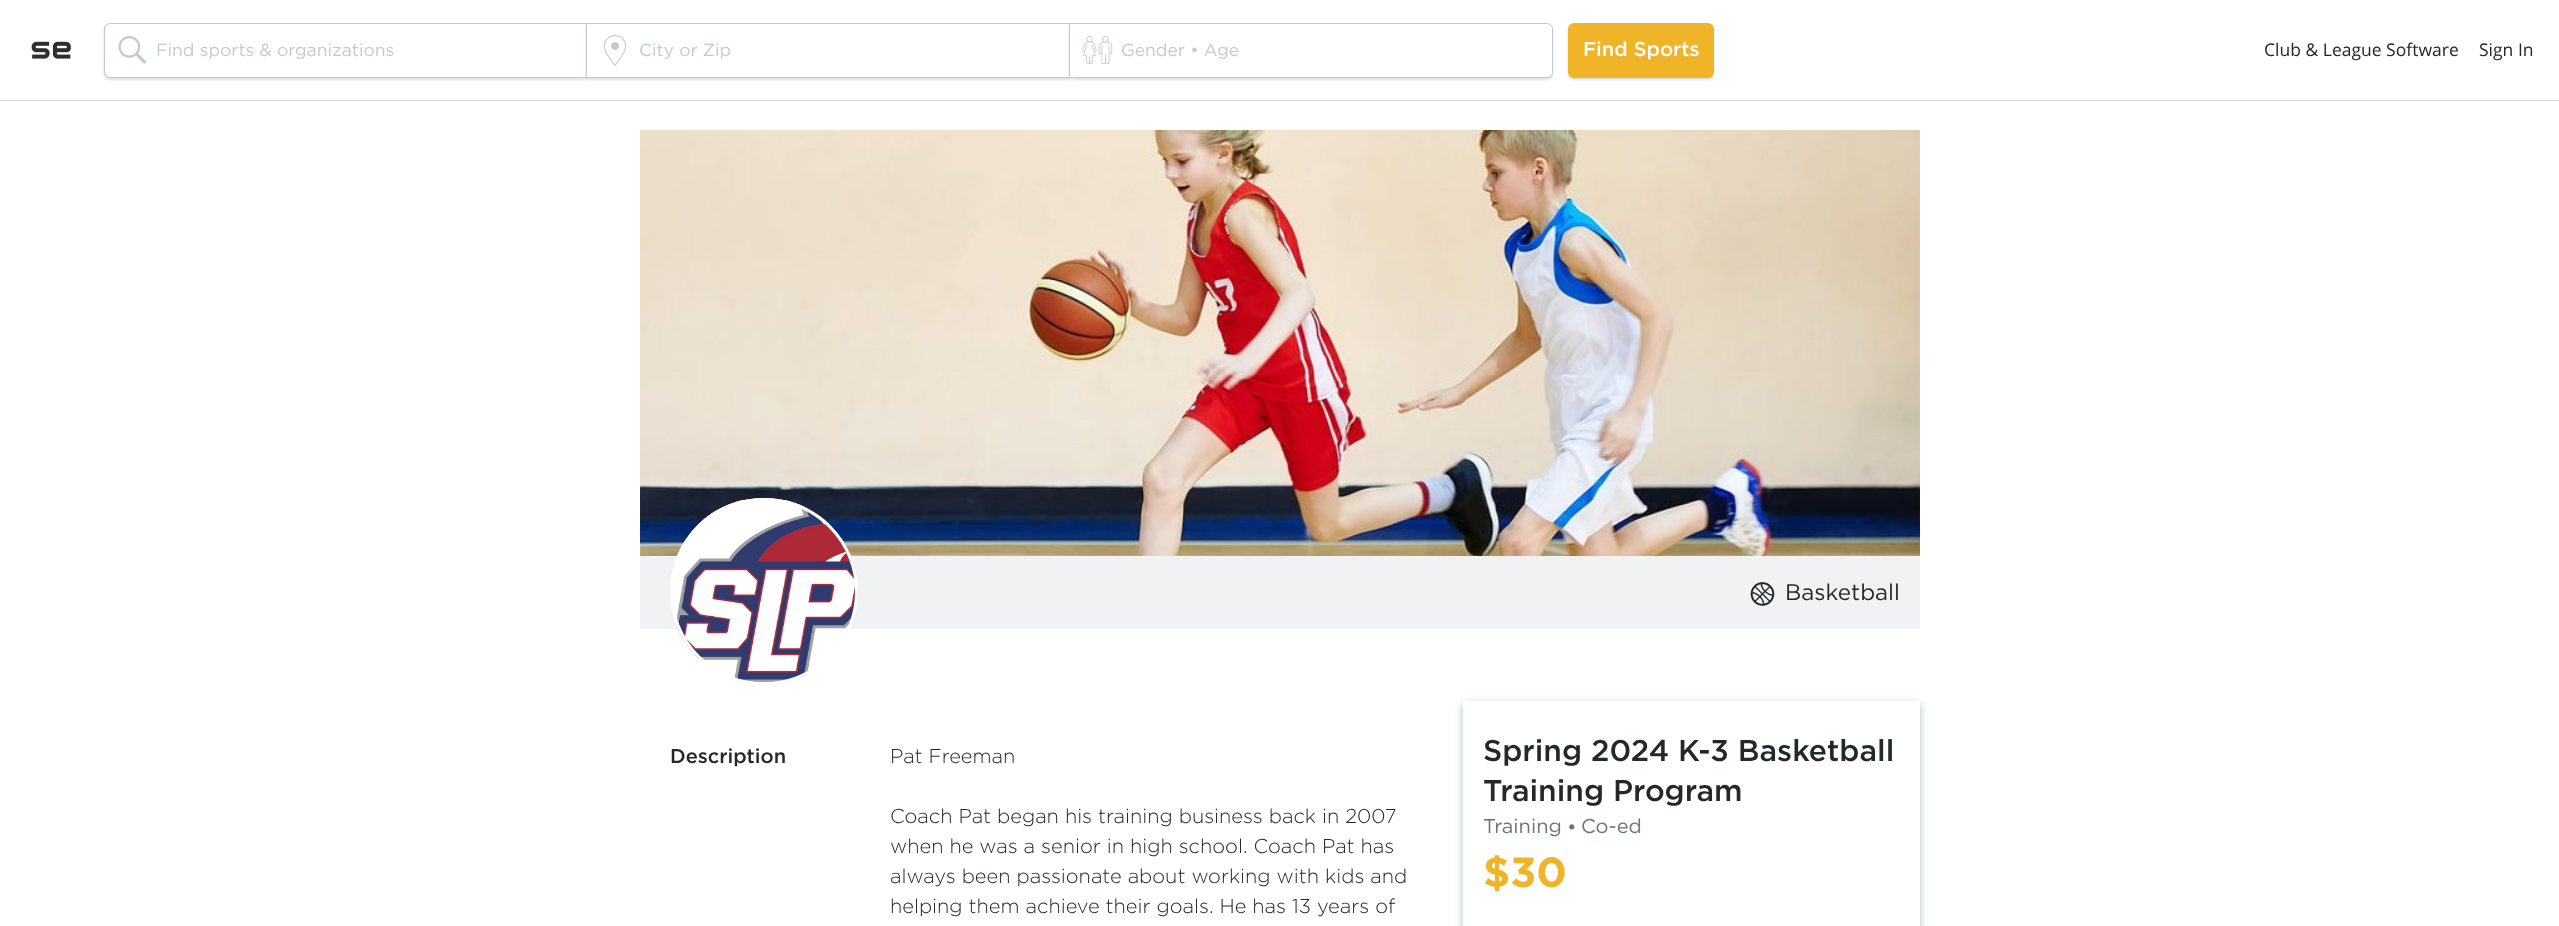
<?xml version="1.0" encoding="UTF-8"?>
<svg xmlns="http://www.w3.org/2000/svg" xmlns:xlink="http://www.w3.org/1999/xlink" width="2559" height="926">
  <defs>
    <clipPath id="clip1"><path d="M 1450 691 h 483 v 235 h -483 z m 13 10 h 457 v 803 h -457 z" clip-rule="evenodd" /></clipPath>
  </defs>
  <rect width="100%" height="100%" fill="#ffffff" />
  <rect x="-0.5" y="-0.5" width="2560" height="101" fill="none" stroke="#d4d9dc" />
  <image x="31" y="41" width="40" height="18" xlink:href="image1.png" />
  <rect x="104" y="25" width="484" height="55" rx="6" fill="#23282b" fill-opacity="0.15" filter="blur(1px)" />
  <path d="M 110 23.5 h 477.5 v 54 h -477.5 c -3 0 -5.5 -2.5 -5.5 -5.5 v -43 c 0 -3 2.5 -5.5 5.5 -5.5 z" fill="none" stroke="#c3cace" />
  <path d="M 110 23.5 h 477.5 v 54 h -477.5 c -3 0 -5.5 -2.5 -5.5 -5.5 v -43 c 0 -3 2.5 -5.5 5.5 -5.5 z" fill="#ffffff" stroke="#c3cace" />
  <image x="118" y="36" width="29" height="28" xlink:href="image2.png" />
  <rect x="586" y="25" width="484" height="55" fill="#23282b" fill-opacity="0.15" filter="blur(1px)" />
  <rect x="586.5" y="23.5" width="483" height="54" fill="#ffffff" stroke="#c3cace" />
  <image x="603" y="35" width="24" height="31" xlink:href="image3.png" />
  <rect x="1069" y="25" width="484" height="55" rx="6" fill="#23282b" fill-opacity="0.15" filter="blur(1px)" />
  <path d="M 1069.5 23.5 h 477.5 c 3 0 5.5 2.5 5.5 5.5 v 43 c 0 3 -2.5 5.5 -5.5 5.5 h -477.5 z" fill="#ffffff" stroke="#c3cace" />
  <image x="1082" y="36" width="31" height="29" xlink:href="image4.png" />
  <rect x="1568" y="25" width="146" height="55" rx="6" fill="#23282b" fill-opacity="0.15" filter="blur(1px)" />
  <rect x="1568" y="23" width="146" height="55" rx="6" fill="#f0b428" />
  <image x="640" y="130" width="1280" height="426" xlink:href="image5.png" />
  <rect x="640" y="556" width="1280" height="73" fill="#f0f2f4" />
  <rect x="670" y="498" width="188" height="187" rx="93.5" fill="#ffffff" />
  <image x="674" y="500" width="181" height="183" xlink:href="image6.png" />
  <rect x="671.5" y="499.5" width="185" height="184" rx="92" fill="none" stroke="#ffffff" stroke-width="3" />
  <image x="1750" y="582" width="25" height="24" xlink:href="image7.png" />
  <g clip-path="url(#clip1)">
    <rect x="1463" y="704" width="457" height="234" fill="#68767f" fill-opacity="0.5" filter="blur(4px)" />
  </g>
  <text x="156" y="56" style="font-family: Gotham; font-size: 17.5px; fill: #c3cace">Find sports &amp; organizations</text>
  <text x="639" y="56" style="font-family: Gotham; font-size: 17.5px; fill: #c3cace">City or Zip</text>
  <text x="1121" y="56" style="font-family: Gotham; font-size: 17.5px; fill: #c3cace">Gender • Age</text>
  <text x="1583" y="56" style="font-family: Gotham; font-size: 20px; font-weight: 500; fill: #ffffff">Find Sports</text>
  <text x="2264" y="56" style="font-family: Open Sans; font-size: 17.5px; fill: #23282b">Club &amp; League Software</text>
  <text x="2479" y="56" style="font-family: Open Sans; font-size: 17.5px; fill: #23282b">Sign In</text>
  <text x="1785" y="600" style="font-family: Gotham; font-size: 22.5px; fill: #23282b">Basketball</text>
  <text x="670" y="763" style="font-family: Gotham; font-size: 20px; font-weight: 500; fill: #23282b">Description</text>
  <text x="890" y="763" style="font-family: Gotham; font-size: 20px; font-weight: 300; fill: #23282b">Pat Freeman</text>
  <text x="890" y="823" style="font-family: Gotham; font-size: 20px; font-weight: 300; fill: #23282b">Coach Pat began his training business back in 2007</text>
  <text x="890" y="853" style="font-family: Gotham; font-size: 20px; font-weight: 300; fill: #23282b">when he was a senior in high school. Coach Pat has</text>
  <text x="890" y="883" style="font-family: Gotham; font-size: 20px; font-weight: 300; fill: #23282b">always been passionate about working with kids and</text>
  <text x="890" y="913" style="font-family: Gotham; font-size: 20px; font-weight: 300; fill: #23282b">helping them achieve their goals. He has 13 years of</text>
  <text x="1483" y="761" style="font-family: Gotham; font-size: 30px; font-weight: 500; fill: #23282b">Spring 2024 K-3 Basketball</text>
  <text x="1483" y="801" style="font-family: Gotham; font-size: 30px; font-weight: 500; fill: #23282b">Training Program</text>
  <text x="1483" y="833" style="font-family: Gotham; font-size: 20px; fill: #68767f">Training</text>
  <text x="1567" y="834" style="font-family: Gotham; font-size: 20px; fill: #68767f">•</text>
  <text x="1581" y="833" style="font-family: Gotham; font-size: 20px; fill: #68767f">Co-ed</text>
  <text x="1483" y="887" style="font-family: Gotham; font-size: 42px; font-weight: bold; fill: #f0b428">$30</text>
</svg>
